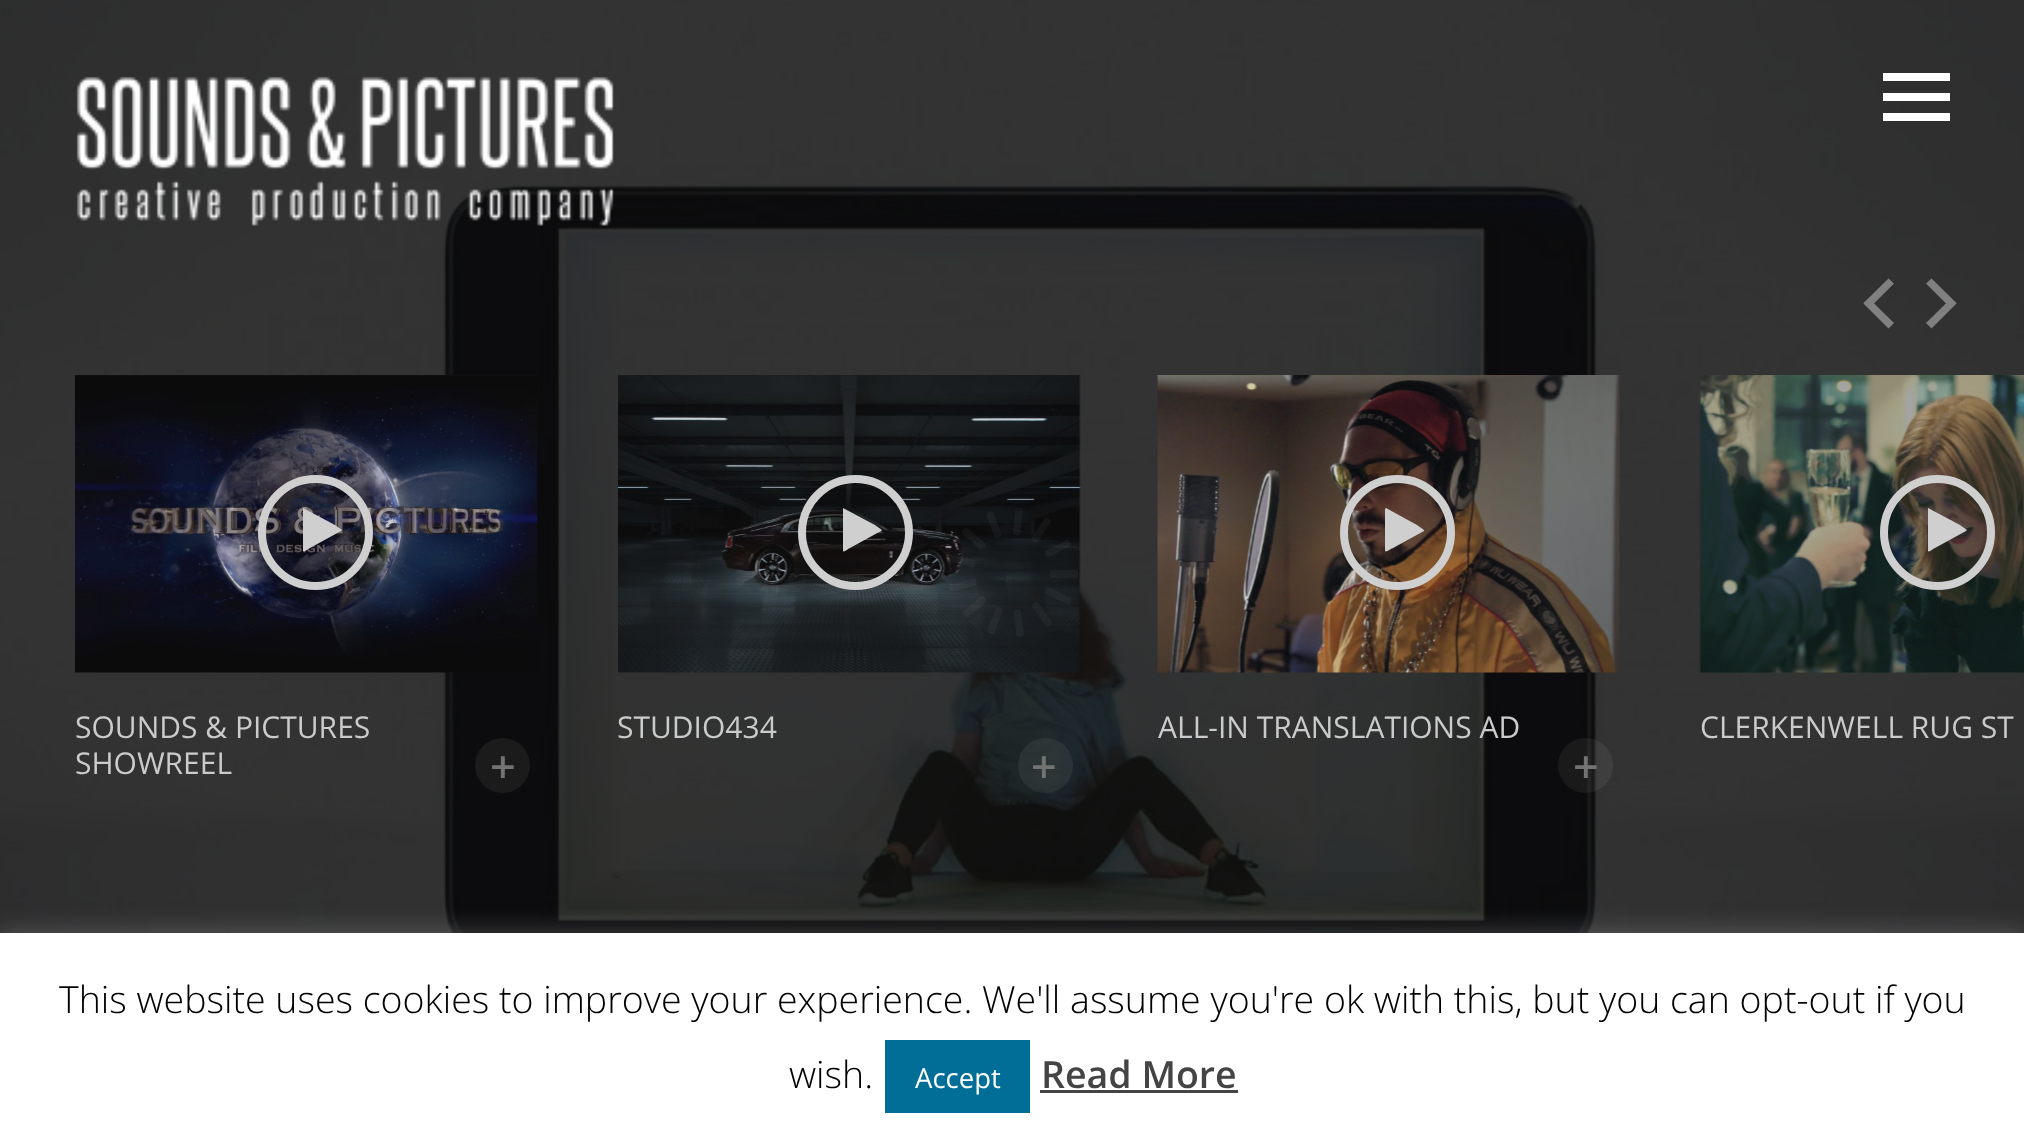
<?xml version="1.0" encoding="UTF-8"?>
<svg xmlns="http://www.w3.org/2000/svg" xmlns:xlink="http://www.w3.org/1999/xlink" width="2024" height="1141">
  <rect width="100%" height="100%" fill="#ffffff" />
  <image x="0" y="0" width="2024" height="933" xlink:href="image1.png" />
  <image x="76" y="76" width="538" height="150" xlink:href="image2.png" />
  <rect x="1883" y="93" width="67" height="8" fill="#ffffff" />
  <rect x="1883" y="73" width="67" height="8" fill="#ffffff" />
  <rect x="1883" y="113" width="67" height="8" fill="#ffffff" />
  <image x="618" y="375" width="463" height="298" xlink:href="image4.png" />
  <path d="M 972.5 567 l -21.5 -5 c -1.5 0 -2.5 -1.5 -2 -3 l 0.5 -2.5 c 0.5 -1 1.5 -2 3 -1.5 l 22 5 c 1 0 2 1.5 1.5 3 l -0.5 2.5 c 0 1 -1.5 2 -3 1.5 z m 7.5 -18 l -17 -14.5 c -1 -1 -1.5 -2.5 -0.5 -3.5 l 2 -2 c 0.5 -1 2 -1 3.5 -0.5 l 17 15 c 1 1 1 2.5 0 3.5 l -1.5 2 c -1 1 -2.5 1 -3.5 0 z m 14.5 -12.5 l -8 -21 c -0.5 -1.5 0.5 -2.5 1.5 -3 l 2.5 -1 c 1 -0.5 2.5 0 3 1.5 l 8 21 c 0.5 1 0 2.5 -1.5 3 l -2 1 c -1.5 0.5 -3 0 -3.5 -1.5 z" fill="#ffffff" fill-opacity="0.04" />
  <path d="M 1013 532.5 l 2.5 -22.5 c 0 -1.5 1 -2.5 2.5 -2.5 l 2.5 0.5 c 1.5 0 2.5 1.5 2.5 2.5 l -2.5 22.5 c 0 1.5 -1.5 2.5 -3 2.5 l -2.5 -0.5 c -1 0 -2 -1.5 -2 -2.5 z m 19 4.5 l 12.5 -18.5 c 0.5 -1 2 -1.5 3.5 -0.5 l 2 1.5 c 1 0.5 1.5 2 0.5 3.5 l -12.5 18.5 c -1 1 -2.5 1.5 -3.5 0.5 l -2 -1.5 c -1 -0.5 -1.5 -2 -0.5 -3.5 z" fill="#ffffff" fill-opacity="0.04" />
  <path d="M 1046 550.5 l 20 -10.5 c 1 -1 2.5 -0.5 3.5 1 l 1 2 c 0.5 1.5 0 3 -1 3.5 l -20 10.5 c -1 0.5 -2.5 0 -3.5 -1 l -1 -2 c -0.5 -1.5 0 -3 1 -3.5 z" fill="#ffffff" fill-opacity="0.04" />
  <rect x="1050" y="570" width="28" height="8" fill="#ffffff" fill-opacity="0.04" />
  <path d="M 1002.5 611.5 l -8 21 c -0.5 1.5 -2 2 -3 1.5 l -2.5 -1 c -1 -0.5 -2 -2 -1.5 -3 l 8 -21 c 0.5 -1.5 1.5 -2 3 -1.5 l 2.5 0.5 c 1 0.5 2 2 1.5 3.5 z m -17 -9.5 l -17 15 c -1 1 -2.5 1 -3.5 0 l -1.5 -2 c -1 -1 -1 -2.5 0 -3.5 l 17 -15 c 1 -1 2.5 -1 3.5 0 l 1.5 2 c 1 1 1 2.5 0 3.5 z m -11 -16 l -21.5 5.5 c -1.5 0 -3 -0.5 -3.5 -2 l -0.5 -2.5 c 0 -1.5 0.5 -2.5 2 -3 l 22 -5.5 c 1 -0.5 2.5 0.5 3 2 l 0.5 2.5 c 0.5 1 -0.5 2.5 -2 3 z" fill="#ffffff" fill-opacity="0.04" />
  <path d="M 1050 587.5 l 20 10 c 1 0.5 1.5 2 1 3.5 l -1 2 c -1 1.5 -2.5 2 -3.5 1 l -20 -10 c -1.5 -0.5 -2 -2 -1 -3.5 l 1 -2 c 0.5 -1.5 2 -2 3.5 -1 z" fill="#ffffff" fill-opacity="0.04" />
  <path d="M 1038.5 603 l 13 18.5 c 0.5 1 0.5 2.5 -0.5 3.5 l -2 1.5 c -1.5 1 -3 0.5 -3.5 -0.5 l -13 -18.5 c -1 -1 -0.5 -3 0.5 -3.5 l 2 -1.5 c 1 -1 2.5 -0.5 3.5 0.5 z m -17.5 8.5 l 3 22.5 c 0 1.5 -1 2.5 -2.5 3 h -2.5 c -1 0.5 -2.5 -0.5 -2.5 -2 l -3 -22.5 c 0 -1 1 -2.5 2.5 -2.5 l 2.5 -0.5 c 1 0 2.5 1 2.5 2 z" fill="#ffffff" fill-opacity="0.04" />
  <path d="M 1869 308.5 l -5.5 -5.5 l 25 -24.5 l 5.5 5 z" fill="#818081" />
  <path d="M 1863.5 303.5 l 5.5 -5 l 25 24.5 l -5.5 5.5 z" fill="#818181" />
  <path d="M 1956.5 303 l -5.5 5.5 l -25 -25 l 5.5 -5 z" fill="#808081" />
  <path d="M 1951 298.5 l 5.5 5 l -25 25 l -5.5 -5.5 z" fill="#808081" />
  <image x="75" y="375" width="463" height="298" xlink:href="image3.png" />
  <circle cx="315.5" cy="532.5" r="53.5" fill="#0c0c0c" fill-opacity="0.15" stroke="#cfcfcf" stroke-width="8" />
  <path d="M 341 531 l -31 17 c -1 0 -6 5 -7 3 v -42 v -1 l 32 17 l 7 5 z" fill="#cfcfcf" />
  <circle cx="502.5" cy="765.5" r="27.5" fill="#1c1b1c" />
  <circle cx="855.5" cy="532.5" r="53.5" fill="#0c0c0c" fill-opacity="0.15" stroke="#cfcfcf" stroke-width="8" />
  <path d="M 881 531 l -31 17 c -1 0 -6 5 -7 3 v -42 v -1 l 32 17 l 7 5 z" fill="#cfcfcf" />
  <circle cx="1045.5" cy="765.5" r="27.5" fill="#cfcfcf" fill-opacity="0.08" />
  <image x="1157" y="375" width="463" height="298" xlink:href="image5.png" />
  <circle cx="1397.5" cy="532.5" r="53.5" fill="#0c0c0c" fill-opacity="0.15" stroke="#cfcfcf" stroke-width="8" />
  <path d="M 1424 531 l -31 17 c -1 0 -7 5 -8 3 v -42 l 1 -1 l 31 17 l 7 5 z" fill="#cfcfcf" />
  <circle cx="1585.5" cy="765.5" r="27.5" fill="#cfcfcf" fill-opacity="0.08" />
  <image x="1699" y="375" width="325" height="298" xlink:href="image6.png" />
  <circle cx="1937.5" cy="532.5" r="53.5" fill="#0c0c0c" fill-opacity="0.15" stroke="#cfcfcf" stroke-width="8" />
  <path d="M 1966 531 l -31 17 c -1 0 -6 5 -7 3 v -42 v -1 l 32 17 l 7 5 z" fill="#cfcfcf" />
  <rect y="930" width="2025" height="210" fill="#acabab" fill-opacity="0.3" filter="blur(12.5px)" />
  <rect y="933" width="2024" height="208" fill="#ffffff" />
  <rect x="885" y="1040" width="145" height="73" fill="#006e96" />
  <rect x="1040" y="1090" width="198" height="3" fill="#444444" />
  <text x="75" y="738" style="font-family: Open Sans; font-size: 30px; fill: #cbcbcb">SOUNDS &amp; PICTURES</text>
  <text x="75" y="774" style="font-family: Open Sans; font-size: 30px; fill: #cbcbcb">SHOWREEL</text>
  <text x="490" y="783" style="font-family: Open Sans; font-size: 45px; font-weight: 600; fill: #737373">+</text>
  <text x="617" y="738" style="font-family: Open Sans; font-size: 30px; fill: #cbcbcb">STUDIO434</text>
  <text x="1031" y="783" style="font-family: Open Sans; font-size: 45px; font-weight: 600; fill: #737373">+</text>
  <text x="1158" y="738" style="font-family: Open Sans; font-size: 30px; fill: #cbcbcb">ALL-IN TRANSLATIONS AD</text>
  <text x="1573" y="783" style="font-family: Open Sans; font-size: 45px; font-weight: 600; fill: #737373">+</text>
  <text x="1700" y="738" style="font-family: Open Sans; font-size: 30px; fill: #cbcbcb">CLERKENWELL RUG ST</text>
  <text x="59" y="1013" style="font-family: Open Sans; font-size: 37.5px; font-weight: 300; fill: #000000">This website uses cookies to improve your experience. We'll assume you're ok with this, but you can opt-out if you</text>
  <text x="789" y="1088" style="font-family: Open Sans; font-size: 37.5px; font-weight: 300; fill: #000000">wish.</text>
  <text x="915" y="1088" style="font-family: Open Sans; font-size: 27.5px; fill: #ffffff">Accept</text>
  <text x="1041" y="1088" style="font-family: Open Sans; font-size: 37.5px; font-weight: 600; fill: #444444">Read More</text>
</svg>
